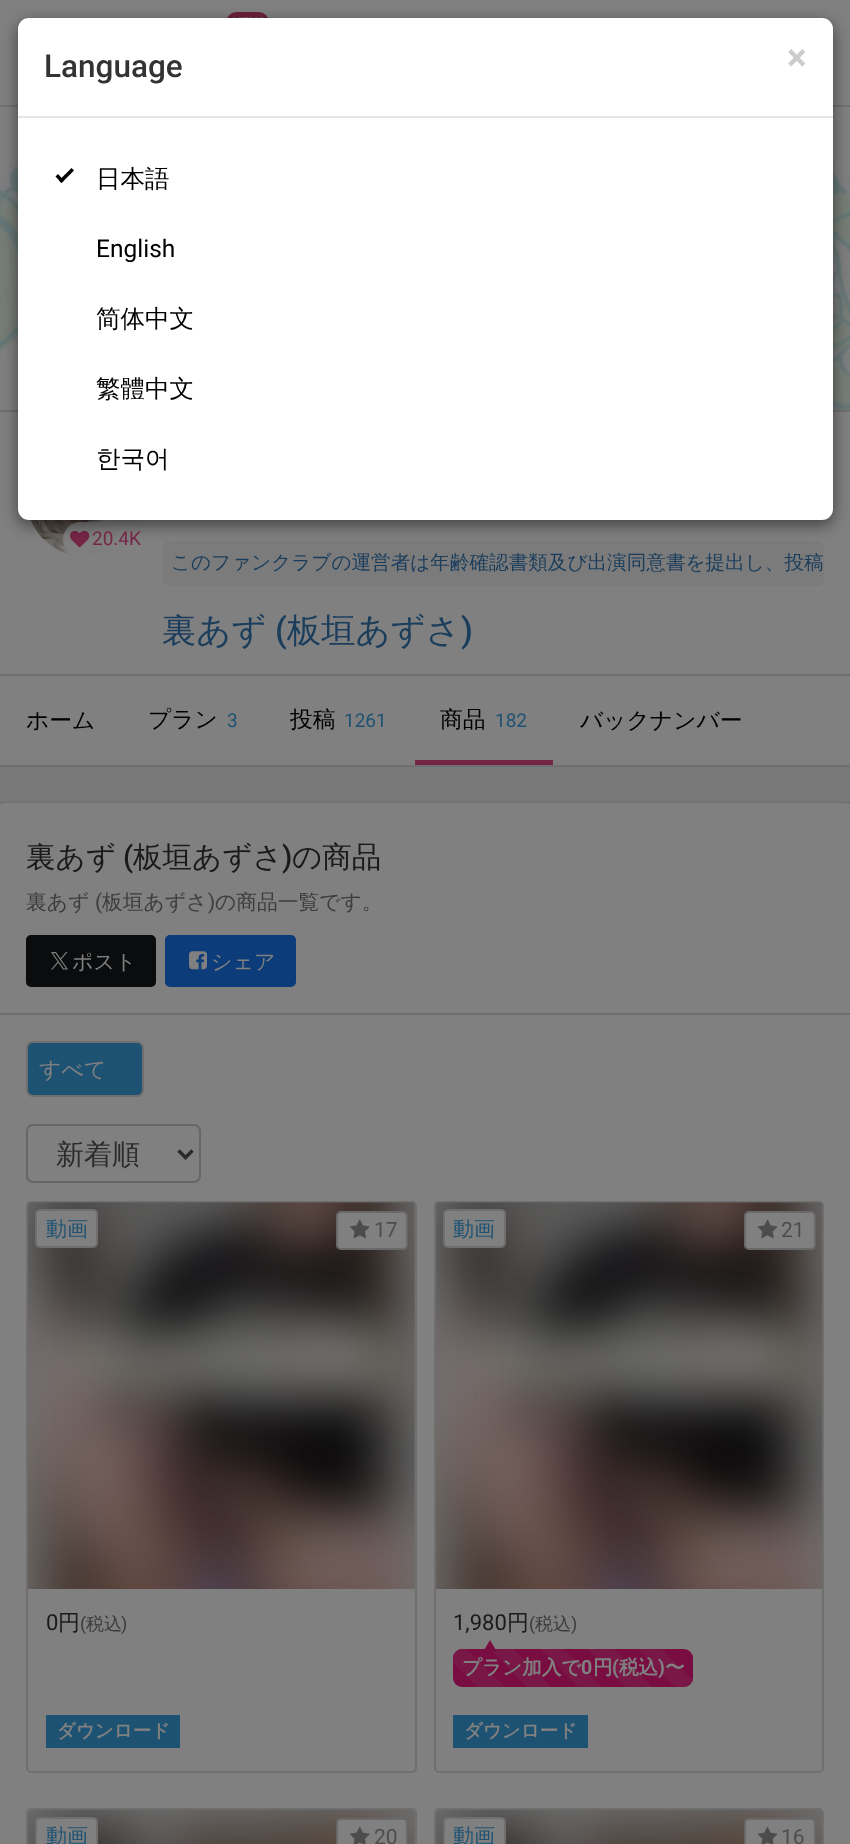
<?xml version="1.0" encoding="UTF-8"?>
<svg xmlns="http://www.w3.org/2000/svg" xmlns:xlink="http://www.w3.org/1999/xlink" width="850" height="1844">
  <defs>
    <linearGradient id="g1" gradientUnits="userSpaceOnUse" x1="504" y1="1737" x2="652" y2="1589"><stop offset="0" stop-color="#000000" stop-opacity="0" /><stop offset="0.08" stop-color="#791847" stop-opacity="0" /><stop offset="0.08" stop-color="#791847" /><stop offset="0.17" stop-color="#791847" /><stop offset="0.17" stop-color="#791847" stop-opacity="0" /><stop offset="0.25" stop-color="#791847" stop-opacity="0" /><stop offset="0.25" stop-color="#791847" /><stop offset="0.33" stop-color="#791847" /><stop offset="0.33" stop-color="#791847" stop-opacity="0" /><stop offset="0.42" stop-color="#791847" stop-opacity="0" /><stop offset="0.42" stop-color="#791847" /><stop offset="0.5" stop-color="#791847" /><stop offset="0.5" stop-color="#791847" stop-opacity="0" /><stop offset="0.58" stop-color="#791847" stop-opacity="0" /><stop offset="0.58" stop-color="#791847" /><stop offset="0.67" stop-color="#791847" /><stop offset="0.67" stop-color="#791847" stop-opacity="0" /><stop offset="0.75" stop-color="#791847" stop-opacity="0" /><stop offset="0.75" stop-color="#791847" /><stop offset="0.83" stop-color="#791847" /><stop offset="0.83" stop-color="#791847" stop-opacity="0" /><stop offset="0.92" stop-color="#791847" stop-opacity="0" /><stop offset="0.92" stop-color="#791847" /><stop offset="1" stop-color="#791847" /></linearGradient>
  </defs>
  <rect width="100%" height="100%" fill="#787878" />
  <rect width="850" height="105" fill="#808080" />
  <rect y="105" width="850" height="2" fill="#6f6f6f" />
  <image x="227" y="12" width="41" height="6" xlink:href="image1.png" />
  <image x="0" y="106" width="850" height="304" xlink:href="image2.png" />
  <rect y="410" width="850" height="2" fill="#6f6f6f" />
  <rect y="412" width="850" height="262" fill="#808080" />
  <image x="30" y="520" width="111" height="36" xlink:href="image3.png" />
  <rect x="63" y="522" width="82" height="35" rx="17.5" fill="#808080" fill-opacity="0.95" />
  <image x="70" y="530" width="20" height="18" xlink:href="image4.png" />
  <rect x="163" y="541" width="661" height="45" rx="7" fill="#7b7b7b" />
  <rect x="18" y="23" width="815" height="502" rx="11" fill="#000000" fill-opacity="0.5" filter="blur(8px)" />
  <rect x="18" y="18" width="815" height="502" rx="11" fill="#ffffff" />
  <rect x="18" y="116" width="815" height="2" fill="#e5e5e5" />
  <path d="M 59 180.5 l 12.5 -12.5 l 2.5 2.5 l -12.5 12.5 z" fill="#000000" />
  <path d="M 55.5 176.5 l 2.5 -2.5 l 6 6.5 l -2.5 2.5 z" fill="#000000" />
  <rect y="674" width="850" height="2" fill="#6f6f6f" />
  <rect y="676" width="850" height="89" fill="#808080" />
  <rect y="765" width="850" height="2" fill="#6f6f6f" />
  <rect x="415" y="760" width="138" height="5" fill="#752645" />
  <rect y="804" width="850" height="1040" fill="#808080" />
  <rect y="802" width="850" height="2" fill="#6f6f6f" />
  <path d="M 5 803 h 841 c 3 0 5 2 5 5 v 207 h -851 v -207 c 0 -3 2 -5 5 -5 z" fill="#808080" />
  <rect y="1013" width="850" height="2" fill="#6f6f6f" />
  <rect x="27" y="936" width="128" height="50" rx="4" fill="#0a0c0d" stroke="#0a0c0d" stroke-width="2" />
  <image x="51" y="952" width="17" height="18" xlink:href="image5.png" />
  <rect x="166" y="936" width="129" height="50" rx="4" fill="#0c3c79" stroke="#0c3c79" stroke-width="2" />
  <image x="189" y="951" width="18" height="19" xlink:href="image6.png" />
  <rect x="27" y="1042" width="116" height="54" rx="6" fill="#1d5272" stroke="#6f6f6f" stroke-width="2" />
  <rect x="27" y="1125" width="173" height="57" rx="6" fill="none" stroke="#666666" stroke-width="2" />
  <path d="M 178.5 1150.5 l 7 7 l 7 -7" fill="none" stroke="#2b2b2b" stroke-width="3.5" />
  <rect x="27" y="1202" width="389" height="570" rx="4" fill="none" stroke="#6f6f6f" stroke-width="2" />
  <path d="M 32 1202 h 379 c 2 0 4 2 4 4 v 383 h -387 v -383 c 0 -2 2 -4 4 -4 z" fill="#6f6f6f" />
  <image x="28" y="1202" width="387" height="387" xlink:href="image8.png" />
  <rect x="36" y="1210" width="61" height="37" rx="4" fill="#808080" stroke="#6f6f6f" stroke-width="2" />
  <rect x="337" y="1212" width="70" height="37" rx="4" fill="#808080" stroke="#696969" stroke-width="2" />
  <image x="350" y="1219" width="20" height="20" xlink:href="image7.png" />
  <rect x="46" y="1715" width="134" height="33" fill="#1d5272" />
  <rect x="435" y="1202" width="388" height="570" rx="4" fill="none" stroke="#6f6f6f" stroke-width="2" />
  <path d="M 440 1202 h 379 c 2 0 4 2 4 4 v 383 h -387 v -383 c 0 -2 2 -4 4 -4 z" fill="#6f6f6f" />
  <image x="436" y="1202" width="387" height="387" xlink:href="image10.png" />
  <rect x="444" y="1210" width="61" height="37" rx="4" fill="#808080" stroke="#6f6f6f" stroke-width="2" />
  <rect x="745" y="1212" width="70" height="37" rx="4" fill="#808080" stroke="#696969" stroke-width="2" />
  <image x="757" y="1219" width="21" height="20" xlink:href="image9.png" />
  <rect x="453" y="1649" width="240" height="38" rx="9" fill="#790c40" />
  <rect x="453" y="1649" width="240" height="38" rx="9" fill="url(#g1)" />
  <path d="M 497 1652 h -14 l 7 -12 z" fill="#790c40" />
  <rect x="453" y="1715" width="135" height="33" fill="#1d5272" />
  <rect x="27" y="1809" width="389" height="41" rx="4" fill="none" stroke="#6f6f6f" stroke-width="2" />
  <path d="M 32 1810 h 379 c 2 0 4 2 4 4 v 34 h -387 v -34 c 0 -2 2 -4 4 -4 z" fill="#6f6f6f" />
  <image x="28" y="1809" width="387" height="35" xlink:href="image11.png" />
  <rect x="36" y="1818" width="61" height="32" rx="4" fill="#808080" stroke="#6f6f6f" stroke-width="2" />
  <rect x="337" y="1819" width="70" height="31" rx="4" fill="#808080" stroke="#696969" stroke-width="2" />
  <image x="350" y="1826" width="20" height="18" xlink:href="image12.png" />
  <rect x="435" y="1809" width="388" height="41" rx="4" fill="none" stroke="#6f6f6f" stroke-width="2" />
  <path d="M 440 1810 h 379 c 2 0 4 2 4 4 v 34 h -387 v -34 c 0 -2 2 -4 4 -4 z" fill="#6f6f6f" />
  <image x="436" y="1809" width="387" height="35" xlink:href="image13.png" />
  <rect x="444" y="1818" width="61" height="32" rx="4" fill="#808080" stroke="#6f6f6f" stroke-width="2" />
  <rect x="745" y="1819" width="70" height="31" rx="4" fill="#808080" stroke="#696969" stroke-width="2" />
  <image x="757" y="1826" width="21" height="18" xlink:href="image14.png" />
  <text x="44" y="77" style="font-family: Roboto; font-size: 31.5px; font-weight: 500; fill: #333333">Language</text>
  <text x="787" y="70" style="font-family: Roboto; font-size: 37px; font-weight: bold; fill: #cccccc">×</text>
  <text x="96" y="187" style="font-family: WenQuanYi Zen Hei; font-size: 24.5px; font-weight: 500; fill: #000000">日本語</text>
  <text x="96" y="257" style="font-family: Roboto; font-size: 24.5px; fill: #000000">English</text>
  <text x="96" y="327" style="font-family: WenQuanYi Zen Hei; font-size: 24.5px; font-weight: 500; fill: #000000">简体中文</text>
  <text x="96" y="397" style="font-family: WenQuanYi Zen Hei; font-size: 24.5px; font-weight: 500; fill: #000000">繁體中文</text>
  <text x="96" y="467" style="font-family: WenQuanYi Zen Hei; font-size: 24.5px; font-weight: 500; fill: #000000">한국어</text>
  <text x="92" y="545" style="font-family: Roboto; font-size: 19px; fill: #752645">20.4K</text>
  <text x="171" y="569" style="font-family: WenQuanYi Zen Hei; font-size: 19.6px; font-weight: 500; fill: #1a3d5c">このファンクラブの運営者は年齢確認書類及び出演同意書を提出し、投稿</text>
  <text x="162" y="642" style="font-family: WenQuanYi Zen Hei; font-size: 34.25px; font-weight: 500; fill: #1a3d5c">裏あず</text>
  <text x="275" y="642" style="font-family: Roboto; font-size: 34.25px; font-weight: 500; fill: #1a3d5c">(</text>
  <text x="287" y="642" style="font-family: WenQuanYi Zen Hei; font-size: 34.25px; font-weight: 500; fill: #1a3d5c">板垣あずさ</text>
  <text x="461" y="642" style="font-family: Roboto; font-size: 34.25px; font-weight: 500; fill: #1a3d5c">)</text>
  <text x="26" y="728" style="font-family: WenQuanYi Zen Hei; font-size: 22.75px; font-weight: 500; fill: #000000">ホーム</text>
  <text x="148" y="727" style="font-family: WenQuanYi Zen Hei; font-size: 22.75px; font-weight: 500; fill: #000000">プラン</text>
  <text x="227" y="727" style="font-family: Roboto; font-size: 19px; fill: #1d5272">3</text>
  <text x="290" y="727" style="font-family: WenQuanYi Zen Hei; font-size: 22.75px; font-weight: 500; fill: #000000">投稿</text>
  <text x="344" y="727" style="font-family: Roboto; font-size: 19px; fill: #1d5272">1261</text>
  <text x="440" y="727" style="font-family: WenQuanYi Zen Hei; font-size: 22.75px; font-weight: 500; fill: #000000">商品</text>
  <text x="495" y="727" style="font-family: Roboto; font-size: 19px; fill: #1d5272">182</text>
  <text x="580" y="728" style="font-family: WenQuanYi Zen Hei; font-size: 22.75px; font-weight: 500; fill: #000000">バックナンバー</text>
  <text x="26" y="867" style="font-family: WenQuanYi Zen Hei; font-size: 29.5px; font-weight: 500; fill: #1a1a1a">裏あず</text>
  <text x="123" y="867" style="font-family: Roboto; font-size: 29.5px; font-weight: 500; fill: #1a1a1a">(</text>
  <text x="133" y="867" style="font-family: WenQuanYi Zen Hei; font-size: 29.5px; font-weight: 500; fill: #1a1a1a">板垣あずさ</text>
  <text x="282" y="867" style="font-family: Roboto; font-size: 29.5px; font-weight: 500; fill: #1a1a1a">)</text>
  <text x="292" y="867" style="font-family: WenQuanYi Zen Hei; font-size: 29.5px; font-weight: 500; fill: #1a1a1a">の商品</text>
  <text x="26" y="909" style="font-family: WenQuanYi Zen Hei; font-size: 20.75px; font-weight: 500; fill: #3c3c3c">裏あず</text>
  <text x="95" y="909" style="font-family: Roboto; font-size: 20.75px; fill: #3c3c3c">(</text>
  <text x="102" y="909" style="font-family: WenQuanYi Zen Hei; font-size: 20.75px; font-weight: 500; fill: #3c3c3c">板垣あずさ</text>
  <text x="208" y="909" style="font-family: Roboto; font-size: 20.75px; fill: #3c3c3c">)</text>
  <text x="215" y="909" style="font-family: WenQuanYi Zen Hei; font-size: 20.75px; font-weight: 500; fill: #3c3c3c">の商品一覧です。</text>
  <text x="72" y="969" style="font-family: WenQuanYi Zen Hei; font-size: 21px; font-weight: 500; fill: #808080">ポスト</text>
  <text x="211" y="969" style="font-family: WenQuanYi Zen Hei; font-size: 21px; font-weight: 500; fill: #808080">シェア</text>
  <text x="39" y="1077" style="font-family: WenQuanYi Zen Hei; font-size: 22px; font-weight: 500; fill: #808080">すべて</text>
  <text x="56" y="1164" style="font-family: WenQuanYi Zen Hei; font-size: 28px; font-weight: 500; fill: #2b2b2b">新着順</text>
  <text x="46" y="1236" style="font-family: WenQuanYi Zen Hei; font-size: 21px; font-weight: 500; fill: #1d5272">動画</text>
  <text x="374" y="1237" style="font-family: Roboto; font-size: 21px; fill: #4d4d4d">17</text>
  <text x="46" y="1630" style="font-family: Roboto; font-size: 22px; fill: #1a1a1a">0</text>
  <text x="58" y="1630" style="font-family: WenQuanYi Zen Hei; font-size: 22px; font-weight: 500; fill: #1a1a1a">円</text>
  <text x="80" y="1630" style="font-family: Roboto; font-size: 18px; fill: #3c3c3c">(</text>
  <text x="86" y="1630" style="font-family: WenQuanYi Zen Hei; font-size: 18px; font-weight: 500; fill: #3c3c3c">税込</text>
  <text x="121" y="1630" style="font-family: Roboto; font-size: 18px; fill: #3c3c3c">)</text>
  <text x="57" y="1737" style="font-family: WenQuanYi Zen Hei; font-size: 18.5px; font-weight: bold; fill: #808080">ダウンロード</text>
  <text x="453" y="1236" style="font-family: WenQuanYi Zen Hei; font-size: 21px; font-weight: 500; fill: #1d5272">動画</text>
  <text x="781" y="1237" style="font-family: Roboto; font-size: 21px; fill: #4d4d4d">21</text>
  <text x="453" y="1630" style="font-family: Roboto; font-size: 22px; fill: #1a1a1a">1,980</text>
  <text x="507" y="1630" style="font-family: WenQuanYi Zen Hei; font-size: 22px; font-weight: 500; fill: #1a1a1a">円</text>
  <text x="529" y="1630" style="font-family: Roboto; font-size: 18px; fill: #3c3c3c">(</text>
  <text x="535" y="1630" style="font-family: WenQuanYi Zen Hei; font-size: 18px; font-weight: 500; fill: #3c3c3c">税込</text>
  <text x="571" y="1630" style="font-family: Roboto; font-size: 18px; fill: #3c3c3c">)</text>
  <text x="462" y="1674" style="font-family: WenQuanYi Zen Hei; font-size: 19.6px; font-weight: bold; fill: #808080">プラン加入で</text>
  <text x="581" y="1674" style="font-family: Roboto; font-size: 19.6px; font-weight: bold; fill: #808080">0</text>
  <text x="593" y="1674" style="font-family: WenQuanYi Zen Hei; font-size: 19.6px; font-weight: bold; fill: #808080">円</text>
  <text x="612" y="1674" style="font-family: Roboto; font-size: 19.6px; font-weight: bold; fill: #808080">(</text>
  <text x="619" y="1674" style="font-family: WenQuanYi Zen Hei; font-size: 19.6px; font-weight: bold; fill: #808080">税込</text>
  <text x="658" y="1674" style="font-family: Roboto; font-size: 19.6px; font-weight: bold; fill: #808080">)</text>
  <text x="665" y="1674" style="font-family: WenQuanYi Zen Hei; font-size: 19.6px; font-weight: bold; fill: #808080">〜</text>
  <text x="464" y="1737" style="font-family: WenQuanYi Zen Hei; font-size: 18.5px; font-weight: bold; fill: #808080">ダウンロード</text>
  <text x="46" y="1843" style="font-family: WenQuanYi Zen Hei; font-size: 21px; font-weight: 500; fill: #1d5272">動画</text>
  <text x="374" y="1844" style="font-family: Roboto; font-size: 21px; fill: #4d4d4d">20</text>
  <text x="453" y="1843" style="font-family: WenQuanYi Zen Hei; font-size: 21px; font-weight: 500; fill: #1d5272">動画</text>
  <text x="781" y="1844" style="font-family: Roboto; font-size: 21px; fill: #4d4d4d">16</text>
</svg>
